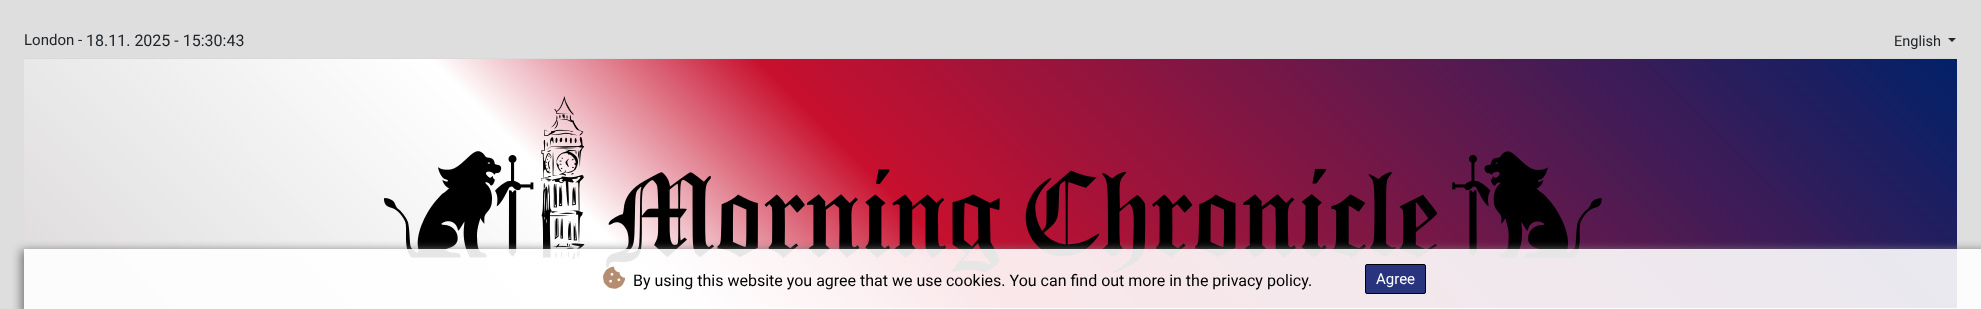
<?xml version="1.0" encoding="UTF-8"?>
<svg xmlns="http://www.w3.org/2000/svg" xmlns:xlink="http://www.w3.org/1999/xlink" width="1981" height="309">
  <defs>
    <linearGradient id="g1" gradientUnits="userSpaceOnUse" x1="445" y1="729" x2="1536" y2="-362"><stop offset="0" stop-color="#dcdadb" /><stop offset="0.3" stop-color="#ffffff" /><stop offset="0.45" stop-color="#c8102e" /><stop offset="1" stop-color="#012169" /></linearGradient>
    <clipPath id="clip1"><path d="M 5 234 h 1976 v 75 h -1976 z m 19 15 h 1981 v 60 h -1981 z" clip-rule="evenodd" /></clipPath>
  </defs>
  <rect width="100%" height="100%" fill="#dedede" />
  <rect x="24" y="308" width="1933" height="1" fill="#d9d9d9" />
  <rect x="24" y="58" width="1933" height="1" fill="#d9d9d9" />
  <path d="M 1948 38 h 8 l -4 4 z" fill="#212529" />
  <rect x="24" y="59" width="1933" height="249" fill="url(#g1)" />
  <image x="384" y="96" width="1218" height="178" xlink:href="image1.png" />
  <g clip-path="url(#clip1)">
    <rect x="21" y="250" width="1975" height="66" fill="#797979" filter="blur(5px)" />
  </g>
  <rect x="24" y="249" width="1957" height="60" fill="#ffffff" fill-opacity="0.9" />
  <image x="603" y="266" width="22" height="23" xlink:href="image2.png" />
  <rect x="1365.5" y="264.5" width="60" height="29" rx="1.5" fill="#28357e" stroke="#000000" />
  <text x="24" y="45" style="font-family: Roboto; font-size: 15px; fill: #212529">London -</text>
  <text x="86" y="46" style="font-family: Roboto; font-size: 16px; fill: #212529">18.11. 2025 - 15:30:43</text>
  <text x="1894" y="46" style="font-family: Roboto; font-size: 14.5px; fill: #212529">English</text>
  <text x="633" y="286" style="font-family: Roboto; font-size: 16px; fill: #000000">By using this website you agree that we use cookies. You can find out more in the privacy policy.</text>
  <text x="1376" y="284" style="font-family: Roboto; font-size: 15px; fill: #ffffff">Agree</text>
</svg>
